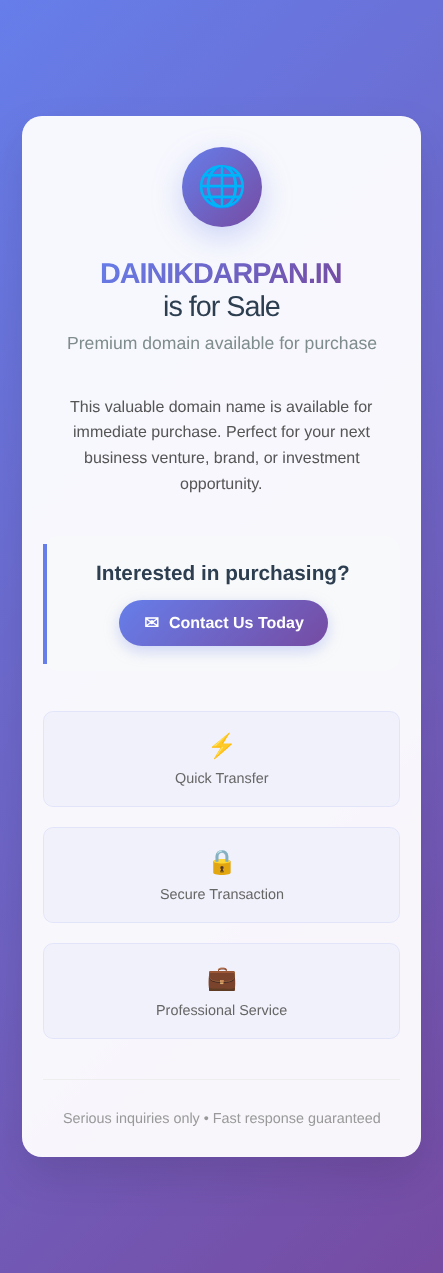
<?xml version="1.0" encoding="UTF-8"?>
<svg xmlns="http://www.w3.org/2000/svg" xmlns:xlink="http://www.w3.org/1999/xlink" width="443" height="1273">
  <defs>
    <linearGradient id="g1" gradientUnits="userSpaceOnUse" x1="-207" y1="208" x2="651" y2="1066"><stop offset="0" stop-color="#667eea" /><stop offset="1" stop-color="#764ba2" /></linearGradient>
    <clipPath id="clip1"><path d="M 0 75 h 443 v 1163 h -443 z m 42 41 h 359 c 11 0 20 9 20 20 v 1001 c 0 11 -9 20 -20 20 h -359 c -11 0 -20 -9 -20 -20 v -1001 c 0 -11 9 -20 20 -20 z" clip-rule="evenodd" /></clipPath>
    <linearGradient id="g2" gradientUnits="userSpaceOnUse" x1="153" y1="204" x2="290" y2="341"><stop offset="0" stop-color="#667eea" /><stop offset="1" stop-color="#764ba2" /></linearGradient>
    <linearGradient id="g3" gradientUnits="userSpaceOnUse" x1="182" y1="147" x2="262" y2="227"><stop offset="0" stop-color="#667eea" /><stop offset="1" stop-color="#764ba2" /></linearGradient>
    <linearGradient id="g4" gradientUnits="userSpaceOnUse" x1="160" y1="559" x2="287" y2="687"><stop offset="0" stop-color="#667eea" /><stop offset="1" stop-color="#764ba2" /></linearGradient>
  </defs>
  <rect width="100%" height="100%" fill="#ffffff" />
  <rect width="443" height="1273" fill="url(#g1)" />
  <g clip-path="url(#clip1)">
    <rect x="22" y="136" width="399" height="1041" rx="20" fill="#000000" fill-opacity="0.1" filter="blur(20px)" />
  </g>
  <rect x="22" y="116" width="399" height="1041" rx="20" fill="#ffffff" fill-opacity="0.95" />
  <rect x="22.5" y="116.5" width="398" height="1040" rx="19.5" fill="none" stroke="#ffffff" stroke-opacity="0.2" />
  <rect x="182" y="157" width="80" height="80" rx="40" fill="#667eea" fill-opacity="0.3" filter="blur(15px)" />
  <circle cx="222" cy="187" r="40" fill="url(#g3)" />
  <rect x="43" y="536" width="357" height="135" rx="15" fill="#f8f9fa" />
  <rect x="43" y="544" width="4" height="120" fill="#667eea" />
  <rect x="119" y="605" width="209" height="46" rx="23" fill="#667eea" fill-opacity="0.3" filter="blur(7.5px)" />
  <rect x="119" y="600" width="209" height="46" rx="23" fill="url(#g4)" />
  <rect x="43" y="711" width="357" height="96" rx="10" fill="#f1f1fb" />
  <rect x="43.5" y="711.5" width="356" height="95" rx="9.5" fill="none" stroke="#667eea" stroke-opacity="0.1" />
  <rect x="43" y="827" width="357" height="96" rx="10" fill="#f1f1fb" />
  <rect x="43.5" y="827.5" width="356" height="95" rx="9.5" fill="none" stroke="#667eea" stroke-opacity="0.1" />
  <rect x="43" y="943" width="357" height="96" rx="10" fill="#f1f1fb" />
  <rect x="43.5" y="943.5" width="356" height="95" rx="9.5" fill="none" stroke="#667eea" stroke-opacity="0.1" />
  <rect x="43" y="1079" width="357" height="1" fill="#eeeeee" />
  <text x="197" y="200" style="font-family: Noto Color Emoji; font-size: 40px; fill: #3d3d3d">🌐</text>
  <text x="100" y="283" style="font-family: Liberation Sans; font-size: 28.75px; font-weight: bold; letter-spacing: -1px; fill: url(#g2)">DAINIKDARPAN.IN</text>
  <text x="163" y="316" style="font-family: Liberation Sans; font-size: 28.75px; letter-spacing: -1px; fill: #2c3e50">is for Sale</text>
  <text x="67" y="349" style="font-family: Liberation Sans; font-size: 17.6px; fill: #7f8c8d">Premium domain available for purchase</text>
  <text x="70" y="412" style="font-family: Liberation Sans; font-size: 16px; fill: #555555">This valuable domain name is available for</text>
  <text x="73" y="437" style="font-family: Liberation Sans; font-size: 16px; fill: #555555">immediate purchase. Perfect for your next</text>
  <text x="84" y="463" style="font-family: Liberation Sans; font-size: 16px; fill: #555555">business venture, brand, or investment</text>
  <text x="180" y="489" style="font-family: Liberation Sans; font-size: 16px; fill: #555555">opportunity.</text>
  <text x="96" y="580" style="font-family: Liberation Sans; font-size: 20.75px; font-weight: bold; fill: #2c3e50">Interested in purchasing?</text>
  <text x="144" y="629" style="font-family: DejaVu Sans; font-size: 18px; font-weight: bold; fill: #ffffff">✉</text>
  <text x="169" y="628" style="font-family: Liberation Sans; font-size: 16px; font-weight: bold; fill: #ffffff">Contact Us Today</text>
  <text x="207" y="754" style="font-family: Noto Color Emoji; font-size: 24px; fill: #333333">⚡</text>
  <text x="175" y="783" style="font-family: Liberation Sans; font-size: 14.4px; fill: #666666">Quick Transfer</text>
  <text x="207" y="870" style="font-family: Noto Color Emoji; font-size: 24px; fill: #333333">🔒</text>
  <text x="160" y="899" style="font-family: Liberation Sans; font-size: 14.4px; fill: #666666">Secure Transaction</text>
  <text x="207" y="986" style="font-family: Noto Color Emoji; font-size: 24px; fill: #333333">💼</text>
  <text x="156" y="1015" style="font-family: Liberation Sans; font-size: 14.4px; fill: #666666">Professional Service</text>
  <text x="63" y="1123" style="font-family: Liberation Sans; font-size: 14.4px; fill: #999999">Serious inquiries only • Fast response guaranteed</text>
</svg>
